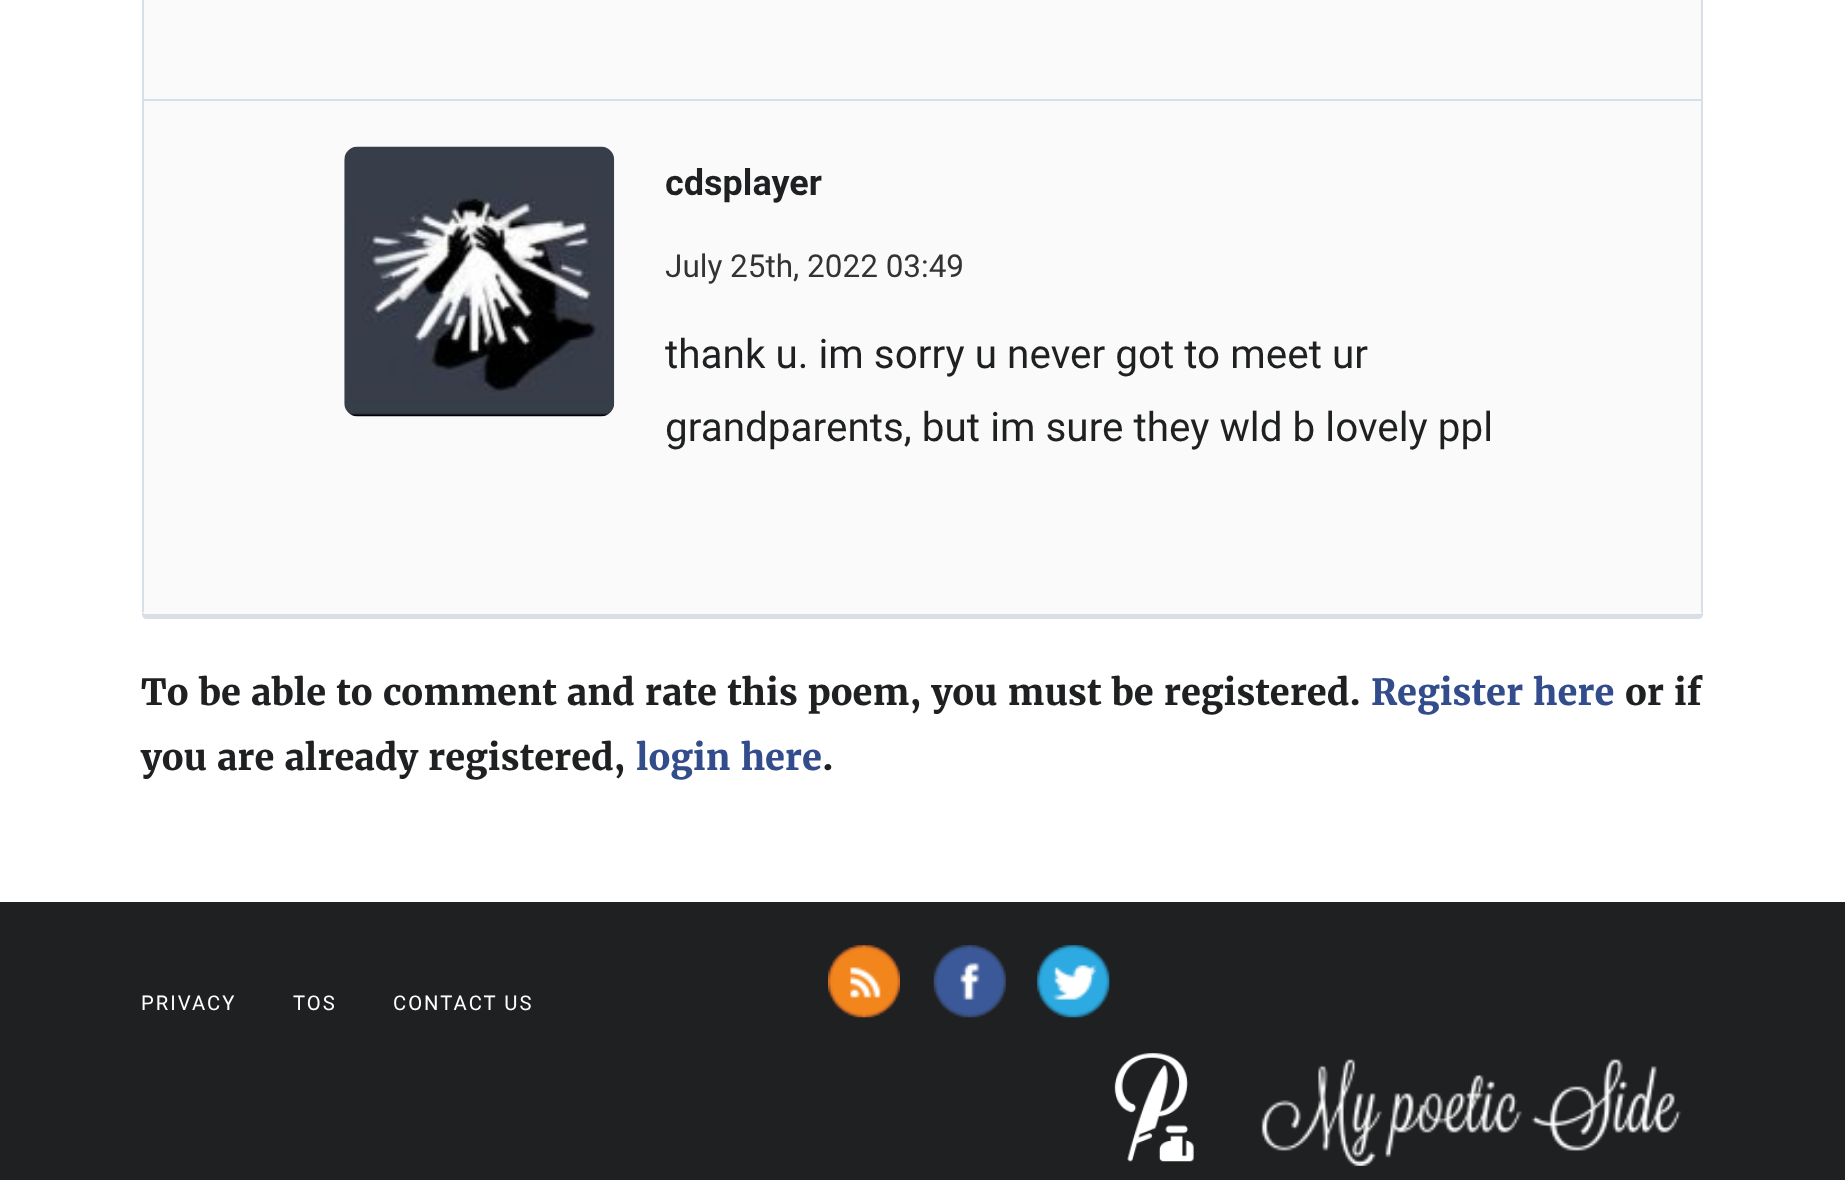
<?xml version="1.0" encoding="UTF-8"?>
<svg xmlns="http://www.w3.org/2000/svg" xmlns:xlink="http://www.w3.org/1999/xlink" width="1845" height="1180">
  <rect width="100%" height="100%" fill="#1f2021" />
  <rect width="1845" height="902" fill="#ffffff" />
  <path d="M 142 611 v 3 c 0 3 2 5 5 5 h 1551 c 3 0 5 -2 5 -5 v -3 c -1 2 -2 3 -4 3 h -1553 c -2 0 -3 -1 -4 -3 z" fill="#d8dfe6" />
  <rect x="142" y="-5" width="1561" height="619" rx="5" fill="#fafafa" />
  <rect x="1701" width="2" height="612" fill="#d8dfe6" />
  <rect x="142" width="2" height="612" fill="#d8dfe6" />
  <rect x="144" y="99" width="1557" height="2" fill="#d8dfe6" />
  <image x="344" y="146" width="271" height="271" xlink:href="image1.png" />
  <image x="828" y="945" width="72" height="73" xlink:href="image2.png" />
  <image x="933" y="945" width="73" height="73" xlink:href="image3.png" />
  <image x="1037" y="945" width="73" height="73" xlink:href="image4.png" />
  <image x="1114" y="1053" width="80" height="109" xlink:href="image5.png" />
  <image x="1261" y="1058" width="421" height="108" xlink:href="image6.png" />
  <text x="665" y="195" style="font-family: Roboto; font-size: 36px; font-weight: bold; fill: #1f2021">cdsplayer</text>
  <text x="665" y="277" style="font-family: Roboto; font-size: 31.5px; fill: #333333">July 25th, 2022 03:49</text>
  <text x="665" y="368" style="font-family: Roboto; font-size: 40.5px; fill: #1f2021">thank u. im sorry u never got to meet ur</text>
  <text x="665" y="441" style="font-family: Roboto; font-size: 40.5px; fill: #1f2021">grandparents, but im sure they wld b lovely ppl</text>
  <text x="141" y="705" style="font-family: Merriweather; font-size: 36px; font-weight: bold; fill: #1f2021">To be able to comment and rate this poem, you must be registered.</text>
  <text x="1371" y="705" style="font-family: Merriweather; font-size: 36px; font-weight: bold; fill: #324c8c">Register here</text>
  <text x="1625" y="705" style="font-family: Merriweather; font-size: 36px; font-weight: bold; fill: #1f2021">or if</text>
  <text x="141" y="770" style="font-family: Merriweather; font-size: 36px; font-weight: bold; fill: #1f2021">you are already registered,</text>
  <text x="636" y="770" style="font-family: Merriweather; font-size: 36px; font-weight: bold; fill: #324c8c">login here</text>
  <text x="822" y="770" style="font-family: Merriweather; font-size: 36px; font-weight: bold; fill: #1f2021">.</text>
  <text x="141" y="1010" style="font-family: Roboto; font-size: 20.25px; letter-spacing: 2px; fill: #ffffff">PRIVACY</text>
  <text x="293" y="1010" style="font-family: Roboto; font-size: 20.25px; letter-spacing: 2px; fill: #ffffff">TOS</text>
  <text x="393" y="1010" style="font-family: Roboto; font-size: 20.25px; letter-spacing: 2px; fill: #ffffff">CONTACT US</text>
</svg>
